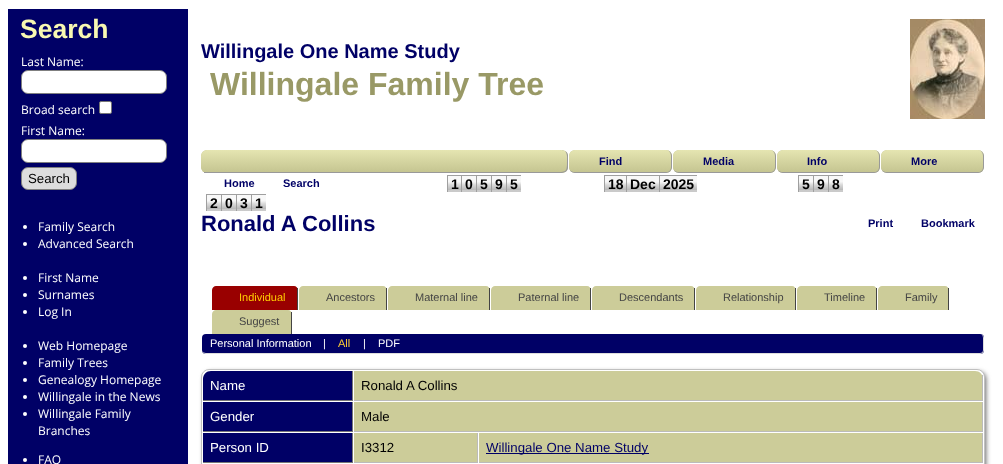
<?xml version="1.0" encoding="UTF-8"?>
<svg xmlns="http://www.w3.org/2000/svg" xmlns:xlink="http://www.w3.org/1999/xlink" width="1003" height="464">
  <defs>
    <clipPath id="clip1"><rect x="201" y="150" width="784" height="23" rx="6" /></clipPath>
    <linearGradient id="g1" gradientUnits="userSpaceOnUse" x1="593" y1="150" x2="593" y2="172"><stop offset="0" stop-color="#e5e5b1" /><stop offset="1" stop-color="#c5c591" /></linearGradient>
    <clipPath id="clip2"><path d="M 557 150 h 5 c 3.5 0 6 2.5 6 6 v 11 c 0 3.5 -2.5 6 -6 6 h -5 z" /></clipPath>
    <linearGradient id="g2" gradientUnits="userSpaceOnUse" x1="562" y1="150" x2="562" y2="172"><stop offset="0" stop-color="#e5e5b1" /><stop offset="1" stop-color="#c5c591" /></linearGradient>
    <linearGradient id="g3" gradientUnits="userSpaceOnUse" x1="562" y1="172" x2="562" y2="194"><stop offset="0" stop-color="#e5e5b1" /><stop offset="1" stop-color="#c5c591" /></linearGradient>
    <clipPath id="clip3"><rect x="569" y="150" width="103" height="23" rx="6" /></clipPath>
    <linearGradient id="g4" gradientUnits="userSpaceOnUse" x1="620" y1="150" x2="620" y2="172"><stop offset="0" stop-color="#e5e5b1" /><stop offset="1" stop-color="#c5c591" /></linearGradient>
    <clipPath id="clip4"><rect x="673" y="150" width="103" height="23" rx="6" /></clipPath>
    <linearGradient id="g5" gradientUnits="userSpaceOnUse" x1="724" y1="150" x2="724" y2="172"><stop offset="0" stop-color="#e5e5b1" /><stop offset="1" stop-color="#c5c591" /></linearGradient>
    <clipPath id="clip5"><rect x="777" y="150" width="103" height="23" rx="6" /></clipPath>
    <linearGradient id="g6" gradientUnits="userSpaceOnUse" x1="828" y1="150" x2="828" y2="172"><stop offset="0" stop-color="#e5e5b1" /><stop offset="1" stop-color="#c5c591" /></linearGradient>
    <clipPath id="clip6"><rect x="881" y="150" width="103" height="23" rx="6" /></clipPath>
    <linearGradient id="g7" gradientUnits="userSpaceOnUse" x1="932" y1="150" x2="932" y2="172"><stop offset="0" stop-color="#e5e5b1" /><stop offset="1" stop-color="#c5c591" /></linearGradient>
    <linearGradient id="g8" gradientUnits="userSpaceOnUse" x1="455" y1="176" x2="455" y2="192"><stop offset="0.36" stop-color="#f8f8f8" /><stop offset="0.54" stop-color="#dbdbdb" /><stop offset="0.87" stop-color="#b8b8b8" /><stop offset="0.94" stop-color="#dbdbdb" /><stop offset="1" stop-color="#b8b8b8" /></linearGradient>
    <linearGradient id="g9" gradientUnits="userSpaceOnUse" x1="469" y1="176" x2="469" y2="192"><stop offset="0.36" stop-color="#f8f8f8" /><stop offset="0.54" stop-color="#dbdbdb" /><stop offset="0.87" stop-color="#b8b8b8" /><stop offset="0.94" stop-color="#dbdbdb" /><stop offset="1" stop-color="#b8b8b8" /></linearGradient>
    <linearGradient id="g10" gradientUnits="userSpaceOnUse" x1="484" y1="176" x2="484" y2="192"><stop offset="0.36" stop-color="#f8f8f8" /><stop offset="0.54" stop-color="#dbdbdb" /><stop offset="0.87" stop-color="#b8b8b8" /><stop offset="0.94" stop-color="#dbdbdb" /><stop offset="1" stop-color="#b8b8b8" /></linearGradient>
    <linearGradient id="g11" gradientUnits="userSpaceOnUse" x1="499" y1="176" x2="499" y2="192"><stop offset="0.36" stop-color="#f8f8f8" /><stop offset="0.54" stop-color="#dbdbdb" /><stop offset="0.87" stop-color="#b8b8b8" /><stop offset="0.94" stop-color="#dbdbdb" /><stop offset="1" stop-color="#b8b8b8" /></linearGradient>
    <linearGradient id="g12" gradientUnits="userSpaceOnUse" x1="514" y1="176" x2="514" y2="192"><stop offset="0.36" stop-color="#f8f8f8" /><stop offset="0.54" stop-color="#dbdbdb" /><stop offset="0.87" stop-color="#b8b8b8" /><stop offset="0.94" stop-color="#dbdbdb" /><stop offset="1" stop-color="#b8b8b8" /></linearGradient>
    <linearGradient id="g13" gradientUnits="userSpaceOnUse" x1="616" y1="176" x2="616" y2="192"><stop offset="0.36" stop-color="#f8f8f8" /><stop offset="0.54" stop-color="#dbdbdb" /><stop offset="0.87" stop-color="#b8b8b8" /><stop offset="0.94" stop-color="#dbdbdb" /><stop offset="1" stop-color="#b8b8b8" /></linearGradient>
    <linearGradient id="g14" gradientUnits="userSpaceOnUse" x1="643" y1="176" x2="643" y2="192"><stop offset="0.36" stop-color="#f8f8f8" /><stop offset="0.54" stop-color="#dbdbdb" /><stop offset="0.87" stop-color="#b8b8b8" /><stop offset="0.94" stop-color="#dbdbdb" /><stop offset="1" stop-color="#b8b8b8" /></linearGradient>
    <linearGradient id="g15" gradientUnits="userSpaceOnUse" x1="679" y1="176" x2="679" y2="192"><stop offset="0.36" stop-color="#f8f8f8" /><stop offset="0.54" stop-color="#dbdbdb" /><stop offset="0.87" stop-color="#b8b8b8" /><stop offset="0.94" stop-color="#dbdbdb" /><stop offset="1" stop-color="#b8b8b8" /></linearGradient>
    <linearGradient id="g16" gradientUnits="userSpaceOnUse" x1="806" y1="176" x2="806" y2="192"><stop offset="0.36" stop-color="#f8f8f8" /><stop offset="0.54" stop-color="#dbdbdb" /><stop offset="0.87" stop-color="#b8b8b8" /><stop offset="0.94" stop-color="#dbdbdb" /><stop offset="1" stop-color="#b8b8b8" /></linearGradient>
    <linearGradient id="g17" gradientUnits="userSpaceOnUse" x1="821" y1="176" x2="821" y2="192"><stop offset="0.36" stop-color="#f8f8f8" /><stop offset="0.54" stop-color="#dbdbdb" /><stop offset="0.87" stop-color="#b8b8b8" /><stop offset="0.94" stop-color="#dbdbdb" /><stop offset="1" stop-color="#b8b8b8" /></linearGradient>
    <linearGradient id="g18" gradientUnits="userSpaceOnUse" x1="836" y1="176" x2="836" y2="192"><stop offset="0.36" stop-color="#f8f8f8" /><stop offset="0.54" stop-color="#dbdbdb" /><stop offset="0.87" stop-color="#b8b8b8" /><stop offset="0.94" stop-color="#dbdbdb" /><stop offset="1" stop-color="#b8b8b8" /></linearGradient>
    <linearGradient id="g19" gradientUnits="userSpaceOnUse" x1="214" y1="195" x2="214" y2="211"><stop offset="0.36" stop-color="#f8f8f8" /><stop offset="0.54" stop-color="#dbdbdb" /><stop offset="0.87" stop-color="#b8b8b8" /><stop offset="0.94" stop-color="#dbdbdb" /><stop offset="1" stop-color="#b8b8b8" /></linearGradient>
    <linearGradient id="g20" gradientUnits="userSpaceOnUse" x1="229" y1="195" x2="229" y2="211"><stop offset="0.36" stop-color="#f8f8f8" /><stop offset="0.54" stop-color="#dbdbdb" /><stop offset="0.87" stop-color="#b8b8b8" /><stop offset="0.94" stop-color="#dbdbdb" /><stop offset="1" stop-color="#b8b8b8" /></linearGradient>
    <linearGradient id="g21" gradientUnits="userSpaceOnUse" x1="244" y1="195" x2="244" y2="211"><stop offset="0.36" stop-color="#f8f8f8" /><stop offset="0.54" stop-color="#dbdbdb" /><stop offset="0.87" stop-color="#b8b8b8" /><stop offset="0.94" stop-color="#dbdbdb" /><stop offset="1" stop-color="#b8b8b8" /></linearGradient>
    <linearGradient id="g22" gradientUnits="userSpaceOnUse" x1="259" y1="195" x2="259" y2="211"><stop offset="0.36" stop-color="#f8f8f8" /><stop offset="0.54" stop-color="#dbdbdb" /><stop offset="0.87" stop-color="#b8b8b8" /><stop offset="0.94" stop-color="#dbdbdb" /><stop offset="1" stop-color="#b8b8b8" /></linearGradient>
  </defs>
  <rect width="100%" height="100%" fill="#ffffff" />
  <rect x="8" y="9" width="180" height="455" fill="#000066" />
  <rect x="21.5" y="70.5" width="145" height="23" rx="6.5" fill="#ffffff" stroke="#808080" />
  <rect x="99.5" y="101.5" width="12" height="12" rx="1.5" fill="#ffffff" stroke="#767676" />
  <rect x="21.5" y="139.5" width="145" height="23" rx="6.5" fill="#ffffff" stroke="#808080" />
  <rect x="21.5" y="167.5" width="55" height="22" rx="6.5" fill="#dddddd" stroke="#808080" />
  <circle cx="25" cy="227" r="2" fill="#ffffff" />
  <circle cx="25" cy="244" r="2" fill="#ffffff" />
  <circle cx="25" cy="278" r="2" fill="#ffffff" />
  <circle cx="25" cy="295" r="2" fill="#ffffff" />
  <circle cx="25" cy="312" r="2" fill="#ffffff" />
  <circle cx="25" cy="346" r="2" fill="#ffffff" />
  <circle cx="25" cy="363" r="2" fill="#ffffff" />
  <circle cx="25" cy="380" r="2" fill="#ffffff" />
  <circle cx="25" cy="397" r="2" fill="#ffffff" />
  <circle cx="25" cy="414" r="2" fill="#ffffff" />
  <circle cx="25" cy="460" r="2" fill="#ffffff" />
  <image x="910" y="19" width="75" height="100" xlink:href="image1.png" />
  <rect x="201" y="150" width="784" height="23" rx="6" fill="#cccc99" />
  <g clip-path="url(#clip1)">
    <path d="M 207 150 h 772 c 3.5 0 6 2.5 6 6 v 16 h -784 v -16 c 0 -3.5 2.5 -6 6 -6 z" fill="url(#g1)" />
  </g>
  <rect x="204" y="172" width="353" height="1" fill="#999999" />
  <rect x="562" y="150" width="423" height="23" fill="#ffffff" />
  <g clip-path="url(#clip2)">
    <rect x="557" y="150" width="11" height="22" fill="url(#g2)" />
    <rect x="557" y="172" width="11" height="1" fill="url(#g3)" />
  </g>
  <path d="M 557 150 c 4 0 10 -0.5 11 5 v 13 c -1 5.5 -7 5 -11 5 z m 0 0 h 6 c 5 1.5 4 8 4 11.5 c 0 10 -0.5 10.5 -10 10.5 z" fill="#999999" fill-rule="evenodd" />
  <rect x="569" y="150" width="103" height="23" rx="6" fill="#cccc99" />
  <g clip-path="url(#clip3)">
    <path d="M 575 150 h 96 v 22 h -102 v -16 c 0 -3.5 2.5 -6 6 -6 z" fill="url(#g4)" />
  </g>
  <path d="M 575 150 h 91 c 3 0 6 3 6 6 v 11 c 0 3 -3 6 -6 6 h -91 c -3 0 -6 -3 -6 -6 v -11 c 0 -3 3 -6 6 -6 z m 0 0 h 91 c 3 0 5 3 5 6 v 11 c 0 3 -2 5 -5 5 h -91 c -3 0 -6 -2 -6 -5 v -11 c 0 -3 3 -6 6 -6 z" fill="#999999" fill-rule="evenodd" />
  <rect x="673" y="150" width="103" height="23" rx="6" fill="#cccc99" />
  <g clip-path="url(#clip4)">
    <path d="M 679 150 h 96 v 22 h -102 v -16 c 0 -3.5 2.5 -6 6 -6 z" fill="url(#g5)" />
  </g>
  <path d="M 679 150 h 91 c 3 0 6 3 6 6 v 11 c 0 3 -3 6 -6 6 h -91 c -3 0 -6 -3 -6 -6 v -11 c 0 -3 3 -6 6 -6 z m 0 0 h 91 c 3 0 5 3 5 6 v 11 c 0 3 -2 5 -5 5 h -91 c -3 0 -6 -2 -6 -5 v -11 c 0 -3 3 -6 6 -6 z" fill="#999999" fill-rule="evenodd" />
  <rect x="777" y="150" width="103" height="23" rx="6" fill="#cccc99" />
  <g clip-path="url(#clip5)">
    <path d="M 783 150 h 96 v 22 h -102 v -16 c 0 -3.5 2.5 -6 6 -6 z" fill="url(#g6)" />
  </g>
  <path d="M 783 150 h 91 c 3 0 6 3 6 6 v 11 c 0 3 -3 6 -6 6 h -91 c -3 0 -6 -3 -6 -6 v -11 c 0 -3 3 -6 6 -6 z m 0 0 h 91 c 3 0 5 3 5 6 v 11 c 0 3 -2 5 -5 5 h -91 c -3 0 -6 -2 -6 -5 v -11 c 0 -3 3 -6 6 -6 z" fill="#999999" fill-rule="evenodd" />
  <rect x="881" y="150" width="103" height="23" rx="6" fill="#cccc99" />
  <g clip-path="url(#clip6)">
    <path d="M 887 150 h 96 v 22 h -102 v -16 c 0 -3.5 2.5 -6 6 -6 z" fill="url(#g7)" />
  </g>
  <path d="M 887 150 h 91 c 3 0 6 3 6 6 v 11 c 0 3 -3 6 -6 6 h -91 c -3 0 -6 -3 -6 -6 v -11 c 0 -3 3 -6 6 -6 z m 0 0 h 91 c 3 0 5 3 5 6 v 11 c 0 3 -2 5 -5 5 h -91 c -3 0 -6 -2 -6 -5 v -11 c 0 -3 3 -6 6 -6 z" fill="#999999" fill-rule="evenodd" />
  <rect x="448" y="176" width="13" height="16" fill="url(#g8)" />
  <rect x="447" y="175" width="74" height="1" fill="#9f9f9f" />
  <rect x="447" y="175" width="1" height="17" fill="#9f9f9f" />
  <rect x="462" y="176" width="14" height="16" fill="url(#g9)" />
  <rect x="461" y="175" width="1" height="17" fill="#9f9f9f" />
  <rect x="477" y="176" width="14" height="16" fill="url(#g10)" />
  <rect x="476" y="175" width="1" height="17" fill="#9f9f9f" />
  <rect x="492" y="176" width="14" height="16" fill="url(#g11)" />
  <rect x="491" y="175" width="1" height="17" fill="#9f9f9f" />
  <rect x="507" y="176" width="14" height="16" fill="url(#g12)" />
  <rect x="506" y="175" width="1" height="17" fill="#9f9f9f" />
  <rect x="605" y="176" width="21" height="16" fill="url(#g13)" />
  <rect x="604" y="175" width="93" height="1" fill="#9f9f9f" />
  <rect x="604" y="175" width="1" height="17" fill="#9f9f9f" />
  <rect x="627" y="176" width="32" height="16" fill="url(#g14)" />
  <rect x="626" y="175" width="1" height="17" fill="#9f9f9f" />
  <rect x="660" y="176" width="37" height="16" fill="url(#g15)" />
  <rect x="659" y="175" width="1" height="17" fill="#9f9f9f" />
  <rect x="799" y="176" width="14" height="16" fill="url(#g16)" />
  <rect x="798" y="175" width="45" height="1" fill="#9f9f9f" />
  <rect x="798" y="175" width="1" height="17" fill="#9f9f9f" />
  <rect x="814" y="176" width="14" height="16" fill="url(#g17)" />
  <rect x="813" y="175" width="1" height="17" fill="#9f9f9f" />
  <rect x="829" y="176" width="14" height="16" fill="url(#g18)" />
  <rect x="828" y="175" width="1" height="17" fill="#9f9f9f" />
  <rect x="207" y="195" width="14" height="16" fill="url(#g19)" />
  <rect x="206" y="194" width="60" height="1" fill="#9f9f9f" />
  <rect x="206" y="194" width="1" height="17" fill="#9f9f9f" />
  <rect x="222" y="195" width="14" height="16" fill="url(#g20)" />
  <rect x="221" y="194" width="1" height="17" fill="#9f9f9f" />
  <rect x="237" y="195" width="14" height="16" fill="url(#g21)" />
  <rect x="236" y="194" width="1" height="17" fill="#9f9f9f" />
  <rect x="252" y="195" width="14" height="16" fill="url(#g22)" />
  <rect x="251" y="194" width="1" height="17" fill="#9f9f9f" />
  <path d="M 216 286 h 78 c 2 0 4 2 4 4 v 20 h -86 v -20 c 0 -2 2 -4 4 -4 z" fill="#990000" />
  <rect x="297" y="288" width="1" height="22" fill="#444444" />
  <path d="M 303 286 h 80 c 2 0 4 2 4 4 v 20 h -88 v -20 c 0 -2 2 -4 4 -4 z" fill="#cccc99" />
  <rect x="386" y="288" width="1" height="22" fill="#444444" />
  <path d="M 392 286 h 94 c 2 0 4 2 4 4 v 20 h -102 v -20 c 0 -2 2 -4 4 -4 z" fill="#cccc99" />
  <rect x="489" y="288" width="1" height="22" fill="#444444" />
  <path d="M 495 286 h 92 c 2 0 4 2 4 4 v 20 h -100 v -20 c 0 -2 2 -4 4 -4 z" fill="#cccc99" />
  <rect x="590" y="288" width="1" height="22" fill="#444444" />
  <path d="M 596 286 h 95 c 2 0 4 2 4 4 v 20 h -103 v -20 c 0 -2 2 -4 4 -4 z" fill="#cccc99" />
  <rect x="694" y="288" width="1" height="22" fill="#444444" />
  <path d="M 700 286 h 92 c 2 0 4 2 4 4 v 20 h -100 v -20 c 0 -2 2 -4 4 -4 z" fill="#cccc99" />
  <rect x="795" y="288" width="1" height="22" fill="#444444" />
  <path d="M 801 286 h 72 c 2 0 4 2 4 4 v 20 h -80 v -20 c 0 -2 2 -4 4 -4 z" fill="#cccc99" />
  <rect x="876" y="288" width="1" height="22" fill="#444444" />
  <path d="M 882 286 h 63 c 2 0 4 2 4 4 v 20 h -71 v -20 c 0 -2 2 -4 4 -4 z" fill="#cccc99" />
  <rect x="948" y="288" width="1" height="22" fill="#444444" />
  <path d="M 216 310 h 72 c 2 0 4 2 4 4 v 20 h -80 v -20 c 0 -2 2 -4 4 -4 z" fill="#cccc99" />
  <rect x="291" y="312" width="1" height="22" fill="#444444" />
  <rect x="202" y="334" width="782" height="20" rx="4" fill="#000066" />
  <path d="M 206 334 h 774 c 2 0 4 2 4 4 v 12 c 0 2 -2 4 -4 4 h -774 c -2 0 -4 -2 -4 -4 v -12 c 0 -2 2 -4 4 -4 z m 0 0 h 774 c 2 0 3 2 3 4 v 12 c 0 2 -1 3 -3 3 h -774 c -2 0 -4 -1 -4 -3 v -12 c 0 -2 2 -4 4 -4 z" fill="#dddddd" fill-rule="evenodd" />
  <rect x="204" y="372" width="782" height="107" rx="7" fill="#666666" filter="blur(2.5px)" />
  <rect x="201.5" y="369.5" width="783" height="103" rx="7.5" fill="#ffffff" stroke="#c0c0c0" />
  <path d="M 211 371 h 142 v 30 h -150 v -22 c 0 -4.5 3.5 -8 8 -8 z" fill="#000066" />
  <rect x="352" y="371" width="1" height="30" fill="#777777" />
  <rect x="203" y="400" width="150" height="1" fill="#777777" />
  <path d="M 354 371 h 621 c 4.5 0 8 3.5 8 8 v 22 h -629 z" fill="#cccc99" />
  <rect x="982" y="375" width="1" height="26" fill="#bbbbbb" />
  <rect x="354" y="400" width="629" height="1" fill="#bbbbbb" />
  <rect x="203" y="402" width="149" height="29" fill="#000066" />
  <rect x="352" y="402" width="1" height="30" fill="#777777" />
  <rect x="203" y="431" width="150" height="1" fill="#777777" />
  <rect x="354" y="402" width="628" height="29" fill="#cccc99" />
  <rect x="982" y="402" width="1" height="30" fill="#bbbbbb" />
  <rect x="354" y="431" width="629" height="1" fill="#bbbbbb" />
  <rect x="203" y="433" width="149" height="29" fill="#000066" />
  <rect x="352" y="433" width="1" height="30" fill="#777777" />
  <rect x="203" y="462" width="150" height="1" fill="#777777" />
  <rect x="354" y="433" width="123" height="29" fill="#cccc99" />
  <rect x="477" y="433" width="1" height="30" fill="#bbbbbb" />
  <rect x="354" y="462" width="124" height="1" fill="#bbbbbb" />
  <rect x="479" y="433" width="503" height="29" fill="#cccc99" />
  <rect x="982" y="433" width="1" height="30" fill="#bbbbbb" />
  <rect x="479" y="462" width="504" height="1" fill="#bbbbbb" />
  <rect x="486" y="453" width="163" height="1" fill="#000066" />
  <text x="20" y="38" style="font-family: Liberation Sans; font-size: 26.5px; font-weight: bold; fill: #f8f8b2">Search</text>
  <text x="21" y="66" style="font-family: Open Sans; font-size: 12px; fill: #ffffff">Last Name:</text>
  <text x="21" y="114" style="font-family: Open Sans; font-size: 12px; fill: #ffffff">Broad search</text>
  <text x="21" y="135" style="font-family: Open Sans; font-size: 12px; fill: #ffffff">First Name:</text>
  <text x="28" y="183" style="font-family: Liberation Sans; font-size: 13.25px; fill: #000000">Search</text>
  <text x="38" y="231" style="font-family: Open Sans; font-size: 12px; fill: #ffffff">Family Search</text>
  <text x="38" y="248" style="font-family: Open Sans; font-size: 12px; fill: #ffffff">Advanced Search</text>
  <text x="38" y="282" style="font-family: Open Sans; font-size: 12px; fill: #ffffff">First Name</text>
  <text x="38" y="299" style="font-family: Open Sans; font-size: 12px; fill: #ffffff">Surnames</text>
  <text x="38" y="316" style="font-family: Open Sans; font-size: 12px; fill: #ffffff">Log In</text>
  <text x="38" y="350" style="font-family: Open Sans; font-size: 12px; fill: #ffffff">Web Homepage</text>
  <text x="38" y="367" style="font-family: Open Sans; font-size: 12px; fill: #ffffff">Family Trees</text>
  <text x="38" y="384" style="font-family: Open Sans; font-size: 12px; fill: #ffffff">Genealogy Homepage</text>
  <text x="38" y="401" style="font-family: Open Sans; font-size: 12px; fill: #ffffff">Willingale in the News</text>
  <text x="38" y="418" style="font-family: Open Sans; font-size: 12px; fill: #ffffff">Willingale Family</text>
  <text x="38" y="435" style="font-family: Open Sans; font-size: 12px; fill: #ffffff">Branches</text>
  <text x="38" y="464" style="font-family: Open Sans; font-size: 12px; fill: #ffffff">FAQ</text>
  <text x="201" y="58" style="font-family: Liberation Sans; font-size: 20px; font-weight: bold; fill: #000066">Willingale One Name Study</text>
  <text x="210" y="95" style="font-family: Liberation Sans; font-size: 32px; font-weight: bold; fill: #999966">Willingale Family Tree</text>
  <text x="599" y="165" style="font-family: Liberation Sans; font-size: 11px; font-weight: bold; fill: #000066">Find</text>
  <text x="703" y="165" style="font-family: Liberation Sans; font-size: 11px; font-weight: bold; fill: #000066">Media</text>
  <text x="807" y="165" style="font-family: Liberation Sans; font-size: 11px; font-weight: bold; fill: #000066">Info</text>
  <text x="911" y="165" style="font-family: Liberation Sans; font-size: 11px; font-weight: bold; fill: #000066">More</text>
  <text x="224" y="187" style="font-family: Liberation Sans; font-size: 11px; font-weight: bold; fill: #000066">Home</text>
  <text x="283" y="187" style="font-family: Liberation Sans; font-size: 11px; font-weight: bold; fill: #000066">Search</text>
  <text x="451" y="189" style="font-family: Liberation Sans; font-size: 14px; font-weight: bold; fill: #000000">1</text>
  <text x="465" y="189" style="font-family: Liberation Sans; font-size: 14px; font-weight: bold; fill: #000000">0</text>
  <text x="480" y="189" style="font-family: Liberation Sans; font-size: 14px; font-weight: bold; fill: #000000">5</text>
  <text x="495" y="189" style="font-family: Liberation Sans; font-size: 14px; font-weight: bold; fill: #000000">9</text>
  <text x="510" y="189" style="font-family: Liberation Sans; font-size: 14px; font-weight: bold; fill: #000000">5</text>
  <text x="608" y="189" style="font-family: Liberation Sans; font-size: 14px; font-weight: bold; fill: #000000">18</text>
  <text x="630" y="189" style="font-family: Liberation Sans; font-size: 14px; font-weight: bold; fill: #000000">Dec</text>
  <text x="663" y="189" style="font-family: Liberation Sans; font-size: 14px; font-weight: bold; fill: #000000">2025</text>
  <text x="802" y="189" style="font-family: Liberation Sans; font-size: 14px; font-weight: bold; fill: #000000">5</text>
  <text x="817" y="189" style="font-family: Liberation Sans; font-size: 14px; font-weight: bold; fill: #000000">9</text>
  <text x="832" y="189" style="font-family: Liberation Sans; font-size: 14px; font-weight: bold; fill: #000000">8</text>
  <text x="210" y="208" style="font-family: Liberation Sans; font-size: 14px; font-weight: bold; fill: #000000">2</text>
  <text x="225" y="208" style="font-family: Liberation Sans; font-size: 14px; font-weight: bold; fill: #000000">0</text>
  <text x="240" y="208" style="font-family: Liberation Sans; font-size: 14px; font-weight: bold; fill: #000000">3</text>
  <text x="255" y="208" style="font-family: Liberation Sans; font-size: 14px; font-weight: bold; fill: #000000">1</text>
  <text x="201" y="231" style="font-family: Liberation Sans; font-size: 22px; font-weight: bold; fill: #000066">Ronald A Collins</text>
  <text x="239" y="301" style="font-family: Liberation Sans; font-size: 11px; fill: #ffcc00">Individual</text>
  <text x="326" y="301" style="font-family: Liberation Sans; font-size: 11px; fill: #444444">Ancestors</text>
  <text x="415" y="301" style="font-family: Liberation Sans; font-size: 11px; fill: #444444">Maternal line</text>
  <text x="518" y="301" style="font-family: Liberation Sans; font-size: 11px; fill: #444444">Paternal line</text>
  <text x="619" y="301" style="font-family: Liberation Sans; font-size: 11px; fill: #444444">Descendants</text>
  <text x="723" y="301" style="font-family: Liberation Sans; font-size: 11px; fill: #444444">Relationship</text>
  <text x="824" y="301" style="font-family: Liberation Sans; font-size: 11px; fill: #444444">Timeline</text>
  <text x="905" y="301" style="font-family: Liberation Sans; font-size: 11px; fill: #444444">Family</text>
  <text x="239" y="325" style="font-family: Liberation Sans; font-size: 11px; fill: #444444">Suggest</text>
  <text x="210" y="347" style="font-family: Liberation Sans; font-size: 11px; fill: #ffffff">Personal Information</text>
  <text x="323" y="347" style="font-family: Liberation Sans; font-size: 11px; fill: #ffffff">|</text>
  <text x="338" y="347" style="font-family: Liberation Sans; font-size: 11px; fill: #ffcc33">All</text>
  <text x="363" y="347" style="font-family: Liberation Sans; font-size: 11px; fill: #ffffff">|</text>
  <text x="378" y="347" style="font-family: Liberation Sans; font-size: 11px; fill: #ffffff">PDF</text>
  <text x="210" y="390" style="font-family: Liberation Sans; font-size: 13.25px; fill: #ffffff">Name</text>
  <text x="361" y="390" style="font-family: Liberation Sans; font-size: 13.25px; fill: #000000">Ronald A Collins</text>
  <text x="210" y="421" style="font-family: Liberation Sans; font-size: 13.25px; fill: #ffffff">Gender</text>
  <text x="361" y="421" style="font-family: Liberation Sans; font-size: 13.25px; fill: #000000">Male</text>
  <text x="210" y="452" style="font-family: Liberation Sans; font-size: 13.25px; fill: #ffffff">Person ID</text>
  <text x="361" y="452" style="font-family: Liberation Sans; font-size: 13.25px; fill: #000000">I3312</text>
  <text x="486" y="452" style="font-family: Liberation Sans; font-size: 13.25px; fill: #000066">Willingale One Name Study</text>
  <text x="868" y="227" style="font-family: Liberation Sans; font-size: 11px; font-weight: bold; fill: #000066">Print</text>
  <text x="921" y="227" style="font-family: Liberation Sans; font-size: 11px; font-weight: bold; fill: #000066">Bookmark</text>
</svg>
